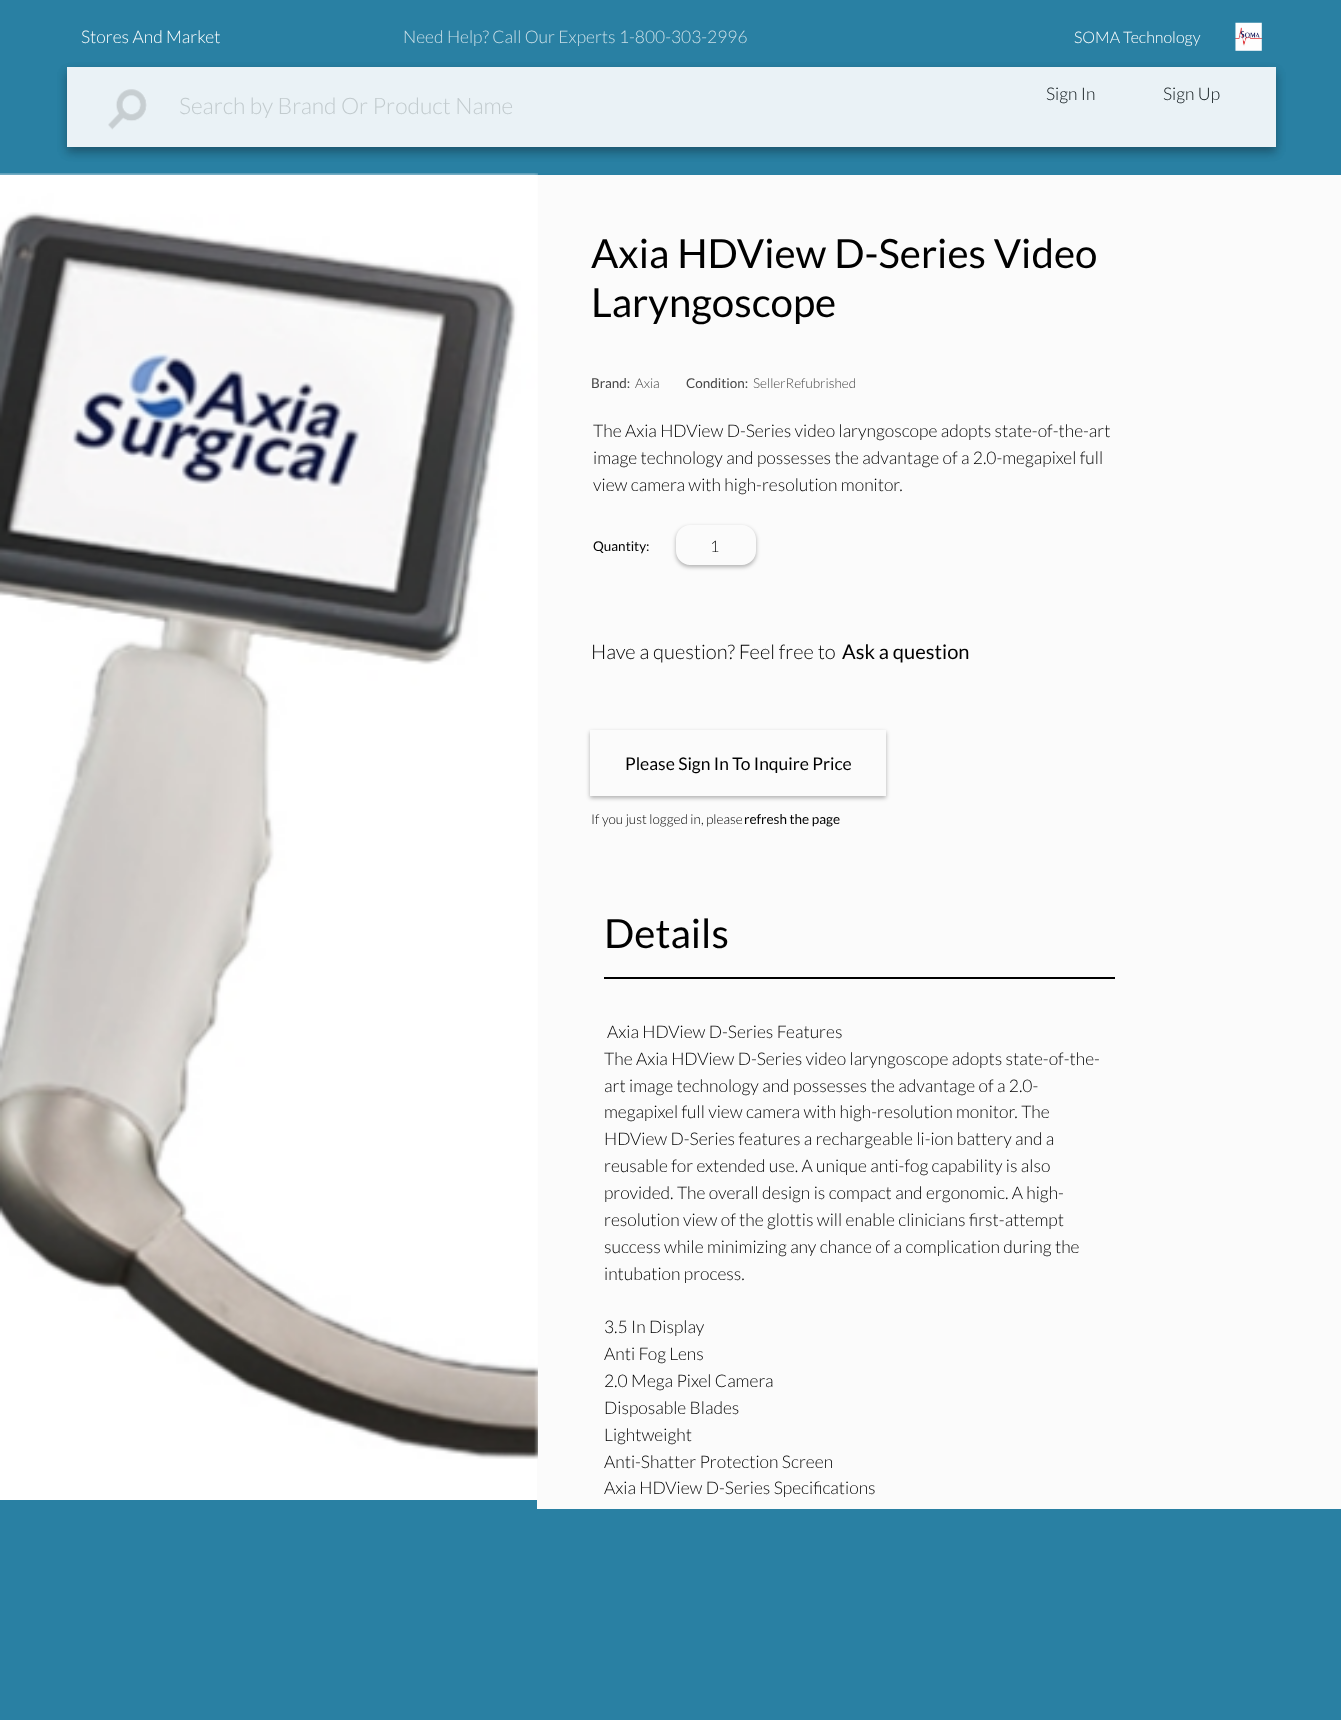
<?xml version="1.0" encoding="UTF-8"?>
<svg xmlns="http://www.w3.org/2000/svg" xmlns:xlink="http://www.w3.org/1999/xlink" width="1341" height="1720">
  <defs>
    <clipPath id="clip1"><path d="M 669 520 h 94 v 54 h -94 z m 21 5 h 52 c 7.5 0 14 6.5 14 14 v 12 c 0 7.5 -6.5 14 -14 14 h -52 c -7.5 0 -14 -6.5 -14 -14 v -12 c 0 -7.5 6.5 -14 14 -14 z" clip-rule="evenodd" /></clipPath>
    <clipPath id="clip2"><path d="M 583 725 h 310 v 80 h -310 z m 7 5 h 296 v 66 h -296 z" clip-rule="evenodd" /></clipPath>
  </defs>
  <rect width="100%" height="100%" fill="#2980a3" />
  <image x="1235" y="22" width="27" height="29" xlink:href="image1.png" />
  <rect x="67" y="72" width="1209" height="80" fill="#040d10" fill-opacity="0.23" filter="blur(5px)" />
  <rect x="67" y="72" width="1209" height="80" fill="#040d10" fill-opacity="0.16" filter="blur(5px)" />
  <rect x="67" y="67" width="1209" height="80" fill="#eaf2f6" />
  <image x="108" y="89" width="39" height="41" xlink:href="image2.png" />
  <rect y="175" width="537" height="1325" fill="#ffffff" />
  <rect x="537" y="175" width="804" height="1334" fill="#fbfbfb" />
  <image x="0" y="173" width="538" height="1286" xlink:href="image3.png" />
  <g clip-path="url(#clip1)">
    <rect x="676" y="527" width="80" height="40" rx="14" fill="#000000" fill-opacity="0.3" filter="blur(2px)" />
  </g>
  <g clip-path="url(#clip2)">
    <rect x="590" y="732" width="296" height="66" fill="#000000" fill-opacity="0.3" filter="blur(2px)" />
  </g>
  <rect x="604" y="977" width="511" height="2" fill="#000000" />
  <text x="81" y="43" style="font-family: Lato; font-size: 17.45px; font-weight: 300; fill: #ffffff">Stores And Market</text>
  <text x="403" y="43" style="font-family: Lato; font-size: 17.45px; font-weight: 300; fill: #cadfe8">Need Help? Call Our Experts 1-800-303-2996</text>
  <text x="1074" y="43" style="font-family: Lato; font-size: 16px; font-weight: 300; fill: #ffffff">SOMA Technology</text>
  <text x="179" y="114" style="font-family: Lato; font-size: 22.8px; font-weight: 300; fill: #c2cbce">Search by Brand Or Product Name</text>
  <text x="1046" y="100" style="font-family: Lato; font-size: 17.45px; font-weight: 300; fill: #040d10">Sign In</text>
  <text x="1163" y="100" style="font-family: Lato; font-size: 17.45px; font-weight: 300; fill: #040d10">Sign Up</text>
  <text x="591" y="268" style="font-family: Lato; font-size: 40.25px; fill: #000000">Axia HDView D-Series Video</text>
  <text x="591" y="317" style="font-family: Lato; font-size: 40.25px; fill: #000000">Laryngoscope</text>
  <text x="591" y="388" style="font-family: Lato; font-size: 13.5px; fill: #454545">Brand:</text>
  <text x="635" y="388" style="font-family: Lato; font-size: 13.5px; font-weight: 300; fill: #454545">Axia</text>
  <text x="686" y="388" style="font-family: Lato; font-size: 13.5px; fill: #454545">Condition:</text>
  <text x="753" y="388" style="font-family: Lato; font-size: 13.5px; font-weight: 300; fill: #454545">SellerRefubrished</text>
  <text x="593" y="437" style="font-family: Lato; font-size: 17.45px; font-weight: 300; fill: #000000">The Axia HDView D-Series video laryngoscope adopts state-of-the-art</text>
  <text x="593" y="464" style="font-family: Lato; font-size: 17.45px; font-weight: 300; fill: #000000">image technology and possesses the advantage of a 2.0-megapixel full</text>
  <text x="593" y="491" style="font-family: Lato; font-size: 17.45px; font-weight: 300; fill: #000000">view camera with high-resolution monitor.</text>
  <text x="593" y="551" style="font-family: Lato; font-size: 13.5px; fill: #000000">Quantity:</text>
  <text x="710" y="552" style="font-family: Lato; font-size: 16px; font-weight: 300; fill: #000000">1</text>
  <text x="591" y="659" style="font-family: Lato; font-size: 20.1px; font-weight: 300; fill: #000000">Have a question? Feel free to</text>
  <text x="842" y="659" style="font-family: Lato; font-size: 20.1px; fill: #000000">Ask a question</text>
  <text x="625" y="770" style="font-family: Lato; font-size: 17.45px; fill: #000000">Please Sign In To Inquire Price</text>
  <text x="591" y="824" style="font-family: Lato; font-size: 13.5px; font-weight: 300; fill: #000000">If you just logged in, please</text>
  <text x="744" y="824" style="font-family: Lato; font-size: 13.5px; fill: #000000">refresh the page</text>
  <text x="604" y="948" style="font-family: Lato; font-size: 40.25px; fill: #000000">Details</text>
  <text x="607" y="1038" style="font-family: Lato; font-size: 17.45px; font-weight: 300; fill: #000000">Axia HDView D-Series Features</text>
  <text x="604" y="1065" style="font-family: Lato; font-size: 17.45px; font-weight: 300; fill: #000000">The Axia HDView D-Series video laryngoscope adopts state-of-the-</text>
  <text x="604" y="1092" style="font-family: Lato; font-size: 17.45px; font-weight: 300; fill: #000000">art image technology and possesses the advantage of a 2.0-</text>
  <text x="604" y="1118" style="font-family: Lato; font-size: 17.45px; font-weight: 300; fill: #000000">megapixel full view camera with high-resolution monitor. The</text>
  <text x="604" y="1145" style="font-family: Lato; font-size: 17.45px; font-weight: 300; fill: #000000">HDView D-Series features a rechargeable li-ion battery and a</text>
  <text x="604" y="1172" style="font-family: Lato; font-size: 17.45px; font-weight: 300; fill: #000000">reusable for extended use. A unique anti-fog capability is also</text>
  <text x="604" y="1199" style="font-family: Lato; font-size: 17.45px; font-weight: 300; fill: #000000">provided. The overall design is compact and ergonomic. A high-</text>
  <text x="604" y="1226" style="font-family: Lato; font-size: 17.45px; font-weight: 300; fill: #000000">resolution view of the glottis will enable clinicians first-attempt</text>
  <text x="604" y="1253" style="font-family: Lato; font-size: 17.45px; font-weight: 300; fill: #000000">success while minimizing any chance of a complication during the</text>
  <text x="604" y="1280" style="font-family: Lato; font-size: 17.45px; font-weight: 300; fill: #000000">intubation process.</text>
  <text x="604" y="1333" style="font-family: Lato; font-size: 17.45px; font-weight: 300; fill: #000000">3.5 In Display</text>
  <text x="604" y="1360" style="font-family: Lato; font-size: 17.45px; font-weight: 300; fill: #000000">Anti Fog Lens</text>
  <text x="604" y="1387" style="font-family: Lato; font-size: 17.45px; font-weight: 300; fill: #000000">2.0 Mega Pixel Camera</text>
  <text x="604" y="1414" style="font-family: Lato; font-size: 17.45px; font-weight: 300; fill: #000000">Disposable Blades</text>
  <text x="604" y="1441" style="font-family: Lato; font-size: 17.45px; font-weight: 300; fill: #000000">Lightweight</text>
  <text x="604" y="1468" style="font-family: Lato; font-size: 17.45px; font-weight: 300; fill: #000000">Anti-Shatter Protection Screen</text>
  <text x="604" y="1494" style="font-family: Lato; font-size: 17.45px; font-weight: 300; fill: #000000">Axia HDView D-Series Specifications</text>
</svg>
